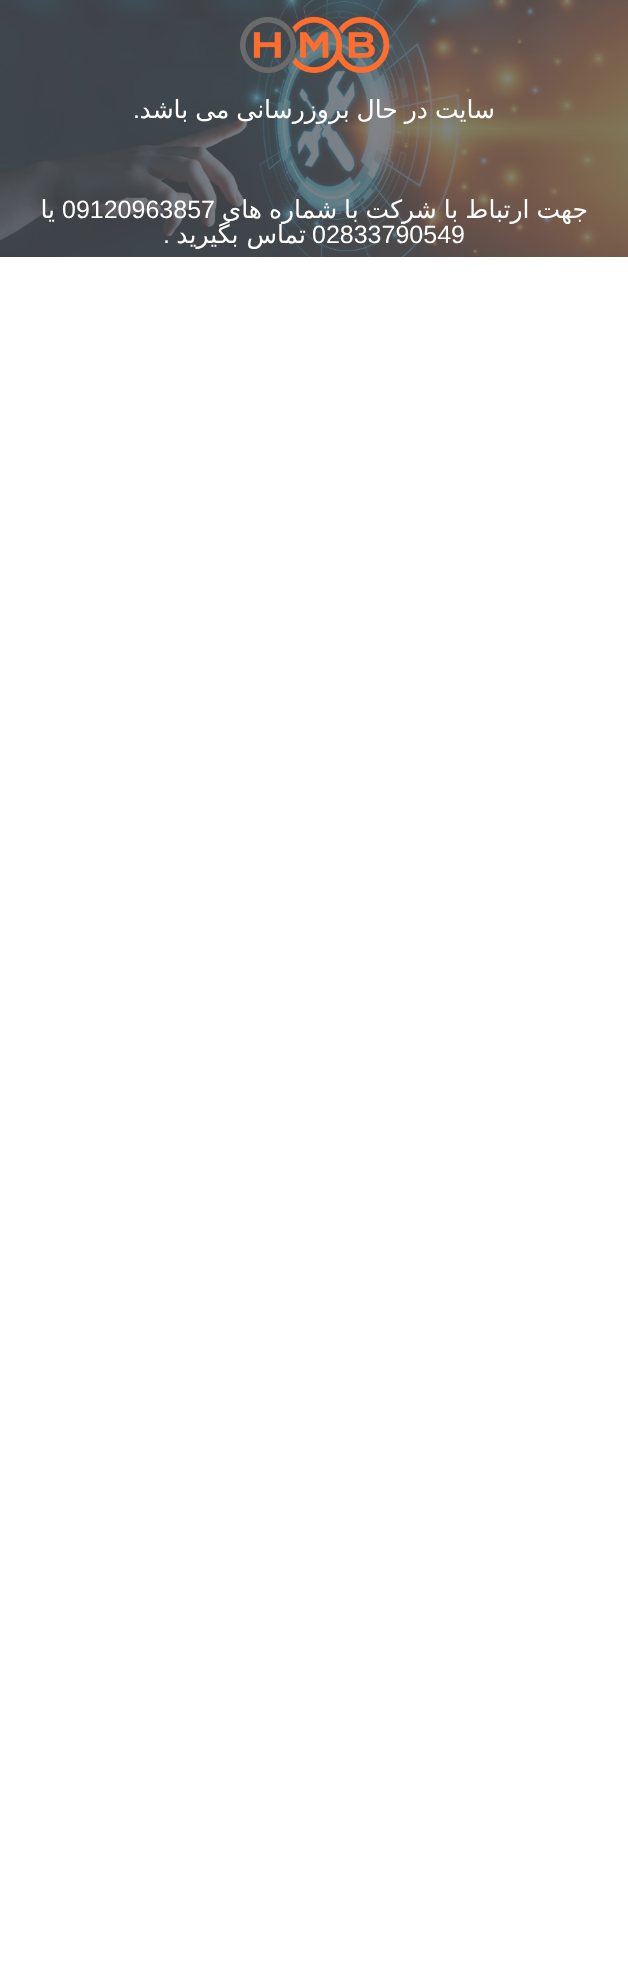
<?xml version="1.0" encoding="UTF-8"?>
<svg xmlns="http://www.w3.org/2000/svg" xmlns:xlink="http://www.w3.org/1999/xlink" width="628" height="1988">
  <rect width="100%" height="100%" fill="#ffffff" />
  <image x="0" y="0" width="628" height="257" xlink:href="image1.png" />
  <image x="240" y="16" width="150" height="58" xlink:href="image2.png" />
  <text x="495" y="118" word-spacing="-1" style="font-family: DejaVu Sans; font-size: 25px; direction: rtl; fill: #ffffff">سایت در حال بروزرسانی می باشد</text>
  <text x="140" y="118" style="font-family: Liberation Sans; font-size: 25px; direction: rtl; fill: #ffffff">.</text>
  <text x="588" y="218" word-spacing="-1" style="font-family: DejaVu Sans; font-size: 25px; direction: rtl; fill: #ffffff">جهت ارتباط با شرکت با شماره های</text>
  <text x="62" y="218" style="font-family: Liberation Sans; font-size: 25px; fill: #ffffff">09120963857</text>
  <text x="55" y="218" style="font-family: DejaVu Sans; font-size: 25px; direction: rtl; fill: #ffffff">یا</text>
  <text x="312" y="243" style="font-family: Liberation Sans; font-size: 25px; fill: #ffffff">02833790549</text>
  <text x="306" y="243" style="font-family: DejaVu Sans; font-size: 25px; direction: rtl; fill: #ffffff">تماس بگیرید</text>
  <text x="170" y="243" style="font-family: Liberation Sans; font-size: 25px; direction: rtl; fill: #ffffff">.</text>
</svg>
